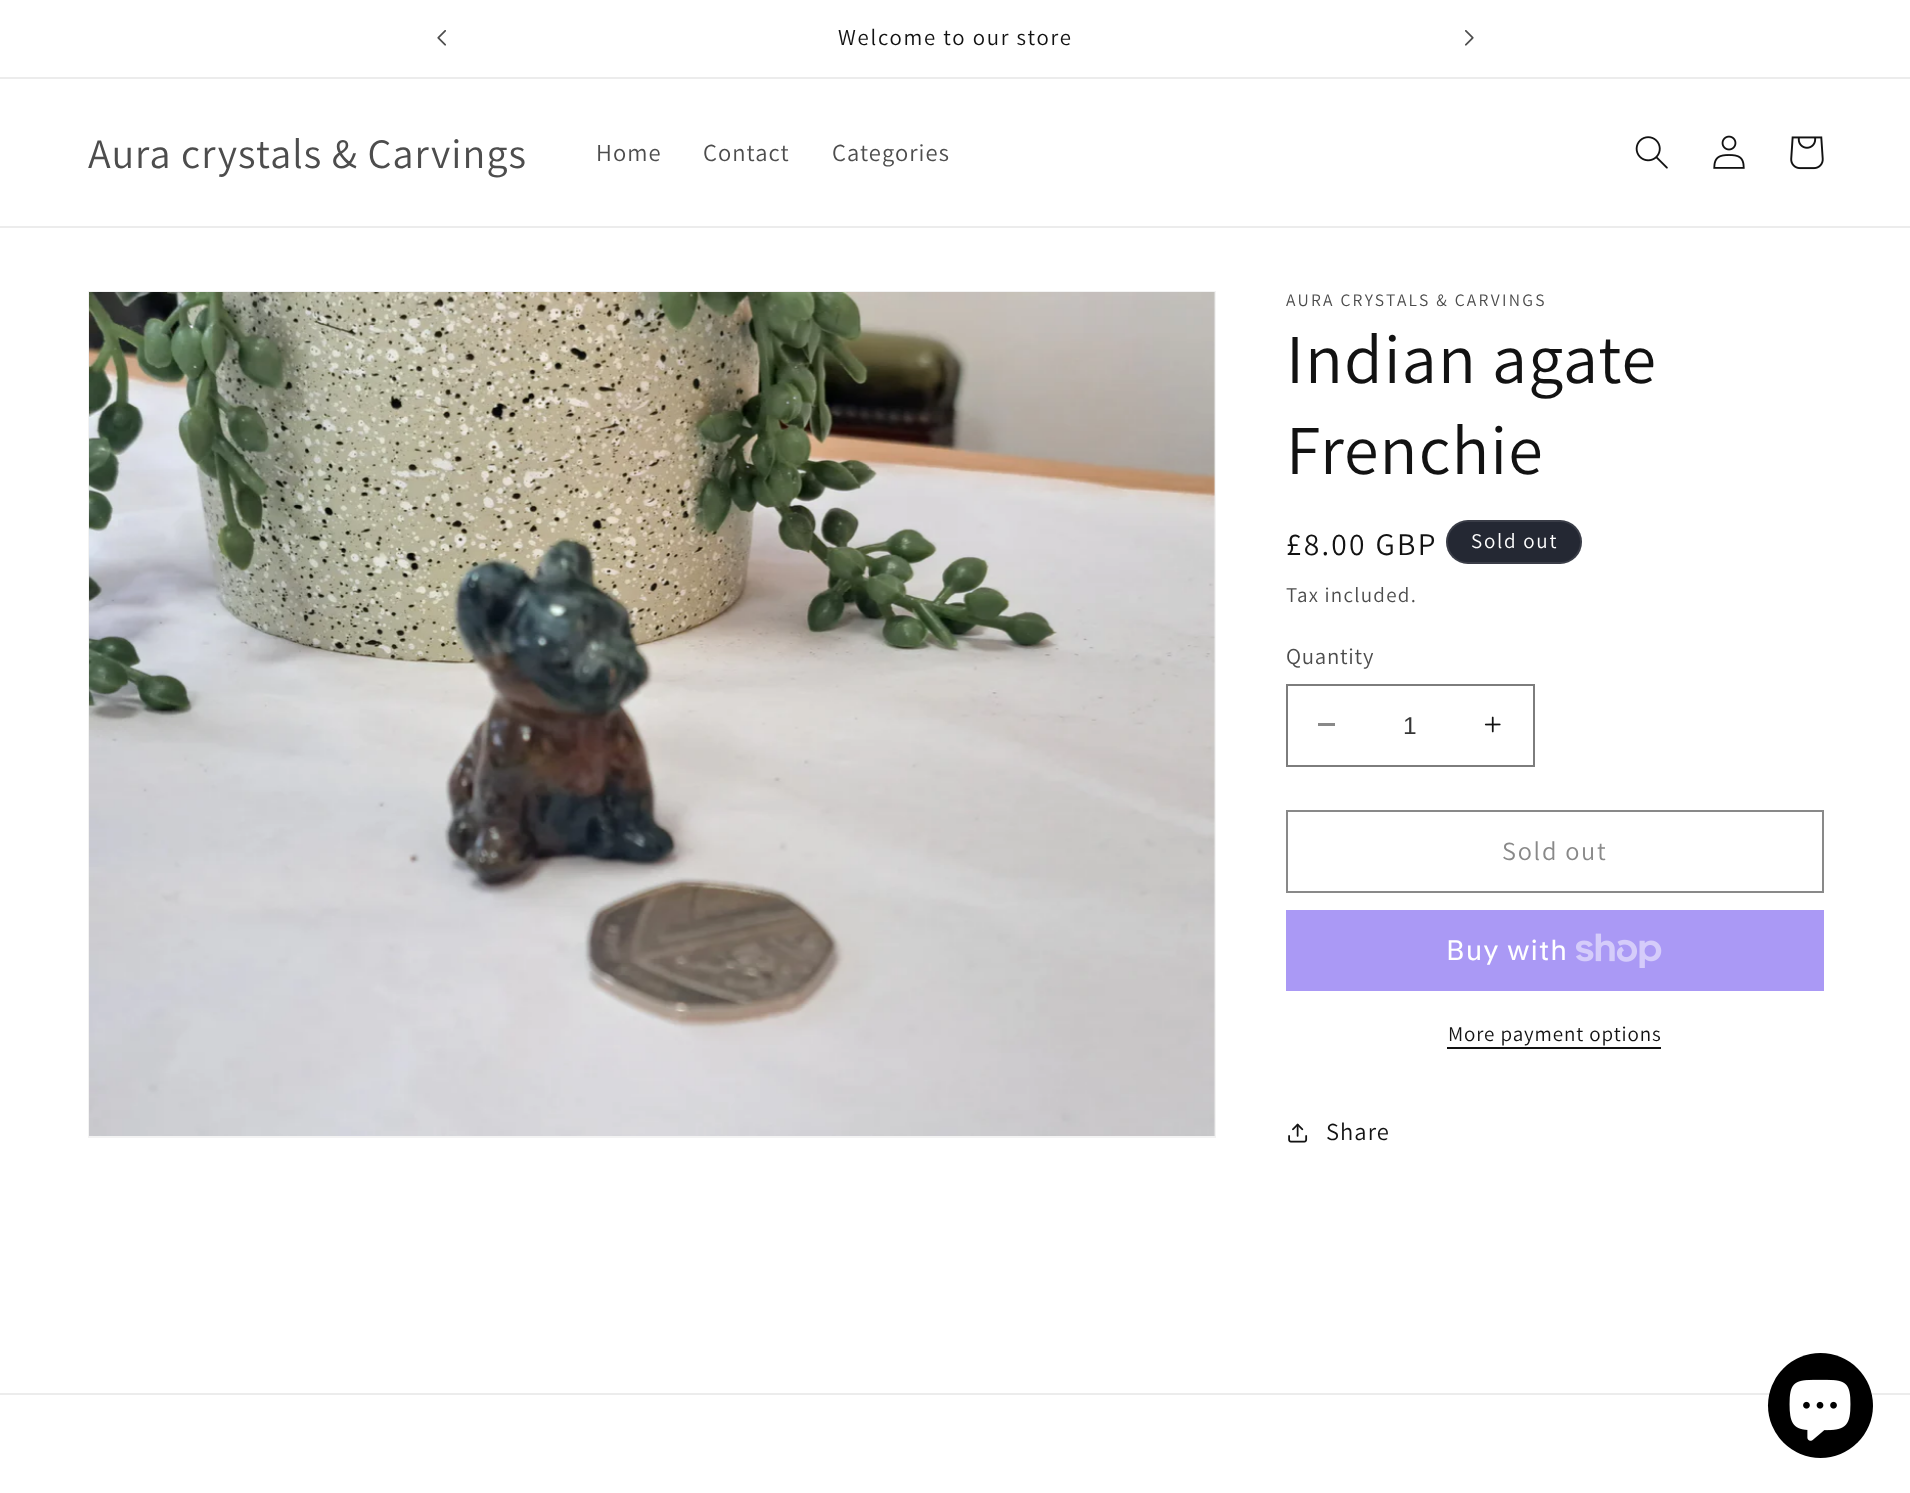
<?xml version="1.0" encoding="UTF-8"?>
<svg xmlns="http://www.w3.org/2000/svg" xmlns:xlink="http://www.w3.org/1999/xlink" width="1910" height="1493">
  <rect width="100%" height="100%" fill="#ffffff" />
  <rect y="77" width="1910" height="2" fill="#ececec" />
  <image x="437" y="30" width="9" height="16" xlink:href="image1.png" />
  <image x="1465" y="30" width="9" height="16" xlink:href="image2.png" />
  <rect y="226" width="1910" height="2" fill="#ececec" />
  <image x="1635" y="136" width="33" height="33" xlink:href="image3.png" />
  <image x="1713" y="135" width="32" height="34" xlink:href="image4.png" />
  <image x="1790" y="136" width="34" height="34" xlink:href="image5.png" />
  <rect x="89" y="292" width="1126" height="845" fill="none" stroke="#f3f3f3" stroke-width="2" />
  <image x="89" y="292" width="1126" height="844" xlink:href="image6.png" />
  <rect x="1446" y="520" width="136" height="44" rx="22" fill="#242833" />
  <rect x="1447" y="521" width="134" height="42" rx="21" fill="none" stroke="#ffffff" stroke-opacity="0.1" stroke-width="2" />
  <rect x="1318" y="723" width="17" height="3" fill="#898989" />
  <image x="1484" y="716" width="17" height="17" xlink:href="image7.png" />
  <rect x="1287" y="685" width="247" height="81" fill="none" stroke="#7d7d7d" stroke-width="2" />
  <rect x="1287" y="811" width="536" height="81" fill="none" stroke="#898989" stroke-width="2" />
  <rect x="1286" y="910" width="538" height="81" fill="#aa99f5" />
  <image x="1576" y="933" width="86" height="35" xlink:href="image8.png" />
  <rect x="1447" y="1047" width="214" height="2" fill="#121212" />
  <image x="1288" y="1123" width="20" height="20" xlink:href="image9.png" />
  <rect y="1393" width="1910" height="2" fill="#ececec" />
  <circle cx="1820.5" cy="1405.5" r="52.5" fill="#000000" />
  <image x="1789" y="1379" width="62" height="62" xlink:href="image10.png" />
  <text x="838" y="45" style="font-family: Assistant; font-size: 22.75px; letter-spacing: 1.75px; fill: #121212">Welcome to our store</text>
  <text x="88" y="168" style="font-family: Assistant; font-size: 42px; letter-spacing: 1.05px; fill: #4d4d4d">Aura crystals &amp; Carvings</text>
  <text x="596" y="161" style="font-family: Assistant; font-size: 24.5px; letter-spacing: 1.05px; fill: #4d4d4d">Home</text>
  <text x="703" y="161" style="font-family: Assistant; font-size: 24.5px; letter-spacing: 1.05px; fill: #4d4d4d">Contact</text>
  <text x="832" y="161" style="font-family: Assistant; font-size: 24.5px; letter-spacing: 1.05px; fill: #4d4d4d">Categories</text>
  <text x="1286" y="306" style="font-family: Assistant; font-size: 17.5px; letter-spacing: 2.25px; fill: #4d4d4d">AURA CRYSTALS &amp; CARVINGS</text>
  <text x="1286" y="383" style="font-family: Assistant; font-size: 70px; letter-spacing: 1.05px; fill: #121212">Indian agate</text>
  <text x="1286" y="474" style="font-family: Assistant; font-size: 70px; letter-spacing: 1.05px; fill: #121212">Frenchie</text>
  <text x="1286" y="555" style="font-family: Assistant; font-size: 31.5px; letter-spacing: 2.25px; fill: #121212">£8.00 GBP</text>
  <text x="1471" y="548" style="font-family: Assistant; font-size: 21px; letter-spacing: 1.75px; fill: #ffffff">Sold out</text>
  <text x="1286" y="602" style="font-family: Assistant; font-size: 21px; letter-spacing: 1.25px; fill: #4d4d4d">Tax included.</text>
  <text x="1286" y="664" style="font-family: Assistant; font-size: 22.75px; letter-spacing: 0.75px; fill: #4d4d4d">Quantity</text>
  <text x="1403" y="734" style="font-family: Liberation Sans; font-size: 24.5px; fill: #363636">1</text>
  <text x="1502" y="860" style="font-family: Assistant; font-size: 26.25px; letter-spacing: 1.75px; fill: #898989">Sold out</text>
  <text x="1446" y="960" style="font-family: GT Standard; font-size: 28px; letter-spacing: 1.05px; fill: #ffffff">Buy with</text>
  <text x="1448" y="1041" style="font-family: Assistant; font-size: 21px; letter-spacing: 0.9px; fill: #121212">More payment options</text>
  <text x="1326" y="1140" style="font-family: Assistant; font-size: 24.5px; letter-spacing: 1.05px; fill: #121212">Share</text>
</svg>
